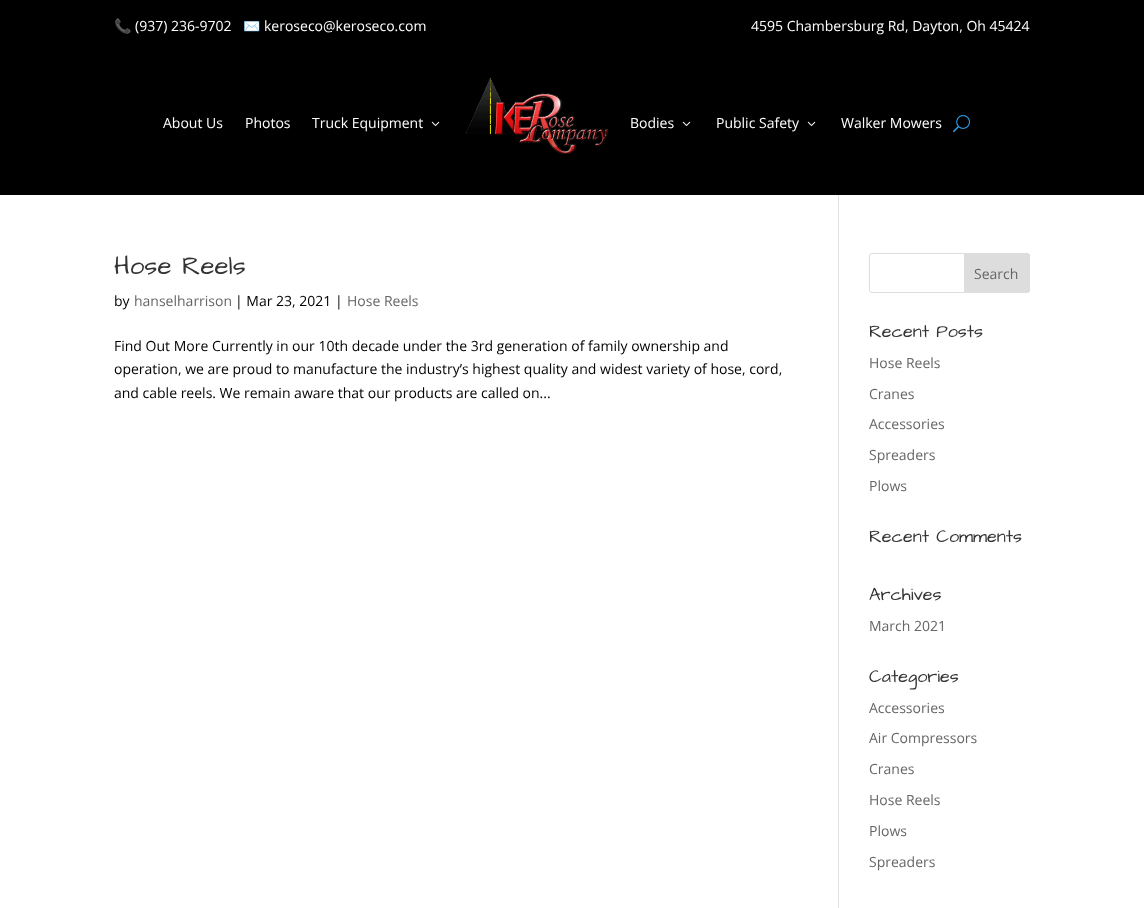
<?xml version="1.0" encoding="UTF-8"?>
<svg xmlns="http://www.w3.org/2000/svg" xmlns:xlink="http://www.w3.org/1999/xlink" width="1144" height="908">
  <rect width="100%" height="100%" fill="#ffffff" />
  <rect width="1144" height="195" fill="#000000" />
  <image x="431" y="121" width="9" height="5" xlink:href="image1.png" />
  <image x="465" y="78" width="143" height="76" xlink:href="image2.png" />
  <image x="682" y="121" width="9" height="5" xlink:href="image1.png" />
  <image x="807" y="121" width="9" height="5" xlink:href="image1.png" />
  <image x="953" y="115" width="17" height="18" xlink:href="image3.png" />
  <rect x="838" y="195" width="1" height="713" fill="#e2e2e2" />
  <rect x="869.5" y="253.5" width="160" height="39" rx="2.5" fill="none" stroke="#dddddd" />
  <path d="M 964.5 253.5 h 62.5 c 1.5 0 2.5 1 2.5 2.5 v 34 c 0 1.5 -1 2.5 -2.5 2.5 h -62.5 z" fill="#dddddd" stroke="#dddddd" />
  <text x="114" y="31" style="font-family: Noto Color Emoji; font-size: 14px; fill: #ffffff">📞</text>
  <text x="135" y="31" style="font-family: Open Sans; font-size: 14px; fill: #ffffff">(937) 236-9702</text>
  <text x="243" y="31" style="font-family: Noto Color Emoji; font-size: 14px; fill: #ffffff">✉️</text>
  <text x="264" y="31" style="font-family: Open Sans; font-size: 14px; fill: #ffffff">keroseco@keroseco.com</text>
  <text x="751" y="31" style="font-family: Open Sans; font-size: 14px; fill: #ffffff">4595 Chambersburg Rd, Dayton, Oh 45424</text>
  <text x="163" y="128" style="font-family: Open Sans; font-size: 14px; fill: #ffffff">About Us</text>
  <text x="245" y="128" style="font-family: Open Sans; font-size: 14px; fill: #ffffff">Photos</text>
  <text x="312" y="128" style="font-family: Open Sans; font-size: 14px; fill: #ffffff">Truck Equipment</text>
  <text x="630" y="128" style="font-family: Open Sans; font-size: 14px; fill: #ffffff">Bodies</text>
  <text x="716" y="128" style="font-family: Open Sans; font-size: 14px; fill: #ffffff">Public Safety</text>
  <text x="841" y="128" style="font-family: Open Sans; font-size: 14px; fill: #ffffff">Walker Mowers</text>
  <text x="114" y="274" style="font-family: Architects Daughter; font-size: 26px; fill: #333333">Hose Reels</text>
  <text x="114" y="306" style="font-family: Open Sans; font-size: 14px; fill: #000000">by</text>
  <text x="134" y="306" style="font-family: Open Sans; font-size: 14px; fill: #666666">hanselharrison</text>
  <text x="235" y="306" style="font-family: Open Sans; font-size: 14px; fill: #000000">| Mar 23, 2021 |</text>
  <text x="347" y="306" style="font-family: Open Sans; font-size: 14px; fill: #666666">Hose Reels</text>
  <text x="114" y="351" style="font-family: Open Sans; font-size: 14px; fill: #000000">Find Out More Currently in our 10th decade under the 3rd generation of family ownership and</text>
  <text x="114" y="374" style="font-family: Open Sans; font-size: 14px; fill: #000000">operation, we are proud to manufacture the industry’s highest quality and widest variety of hose, cord,</text>
  <text x="114" y="398" style="font-family: Open Sans; font-size: 14px; fill: #000000">and cable reels. We remain aware that our products are called on...</text>
  <text x="974" y="279" style="font-family: Open Sans; font-size: 14px; fill: #666666">Search</text>
  <text x="869" y="337" style="font-family: Architects Daughter; font-size: 18px; fill: #333333">Recent Posts</text>
  <text x="869" y="368" style="font-family: Open Sans; font-size: 14px; fill: #666666">Hose Reels</text>
  <text x="869" y="399" style="font-family: Open Sans; font-size: 14px; fill: #666666">Cranes</text>
  <text x="869" y="429" style="font-family: Open Sans; font-size: 14px; fill: #666666">Accessories</text>
  <text x="869" y="460" style="font-family: Open Sans; font-size: 14px; fill: #666666">Spreaders</text>
  <text x="869" y="491" style="font-family: Open Sans; font-size: 14px; fill: #666666">Plows</text>
  <text x="869" y="542" style="font-family: Architects Daughter; font-size: 18px; fill: #333333">Recent Comments</text>
  <text x="869" y="600" style="font-family: Architects Daughter; font-size: 18px; fill: #333333">Archives</text>
  <text x="869" y="631" style="font-family: Open Sans; font-size: 14px; fill: #666666">March 2021</text>
  <text x="869" y="682" style="font-family: Architects Daughter; font-size: 18px; fill: #333333">Categories</text>
  <text x="869" y="713" style="font-family: Open Sans; font-size: 14px; fill: #666666">Accessories</text>
  <text x="869" y="743" style="font-family: Open Sans; font-size: 14px; fill: #666666">Air Compressors</text>
  <text x="869" y="774" style="font-family: Open Sans; font-size: 14px; fill: #666666">Cranes</text>
  <text x="869" y="805" style="font-family: Open Sans; font-size: 14px; fill: #666666">Hose Reels</text>
  <text x="869" y="836" style="font-family: Open Sans; font-size: 14px; fill: #666666">Plows</text>
  <text x="869" y="867" style="font-family: Open Sans; font-size: 14px; fill: #666666">Spreaders</text>
</svg>
